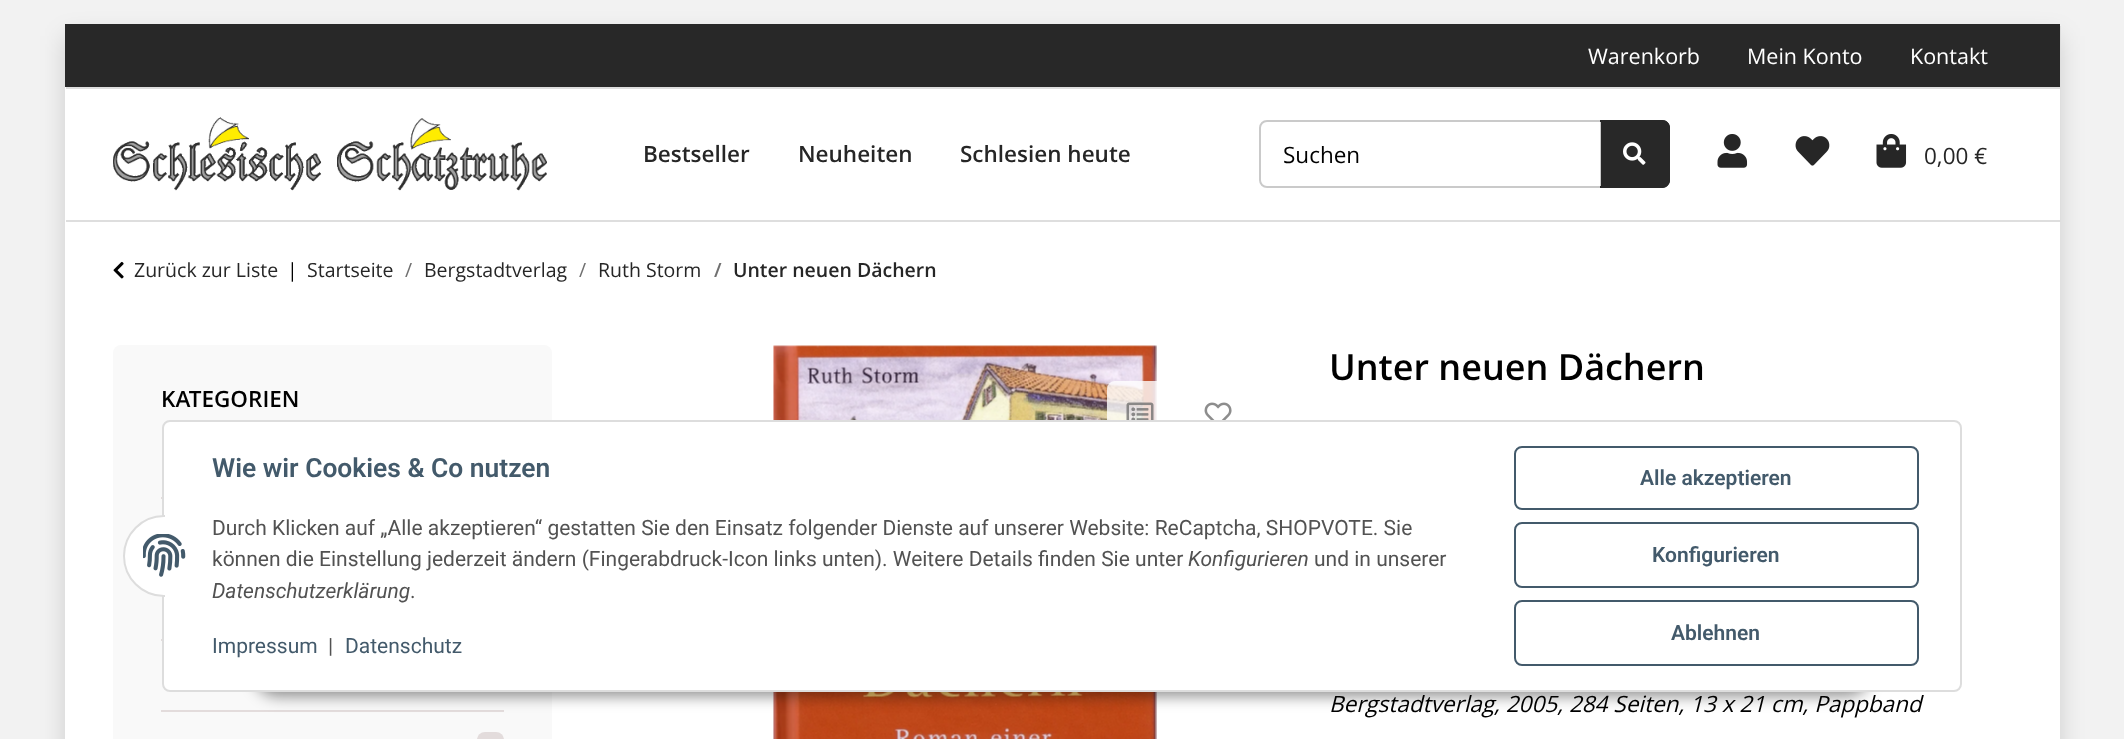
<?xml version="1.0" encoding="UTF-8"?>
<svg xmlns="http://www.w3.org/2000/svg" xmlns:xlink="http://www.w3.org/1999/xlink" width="2124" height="739">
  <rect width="100%" height="100%" fill="#f2f2f2" />
  <rect x="65" y="36" width="1995" height="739" fill="#000000" fill-opacity="0.15" filter="blur(12px)" />
  <rect x="65" y="87" width="1995" height="652" fill="#ffffff" />
  <rect x="65" y="24" width="1995" height="63" fill="#282828" />
  <path d="M 66 87 v 2 h 1995 v -63 h -1 v 61 z" fill="#dedede" />
  <path d="M 66 220 v 2 h 1995 v -133 h -1 v 131 z" fill="#dedede" />
  <image x="113" y="117" width="434" height="74" xlink:href="image1.png" />
  <path d="M 1267 121 h 334 v 66 h -334 c -4 0 -7 -3 -7 -7 v -52 c 0 -4 3 -7 7 -7 z" fill="none" stroke="#cacaca" stroke-width="2" />
  <path d="M 1601 120 h 61 c 4.5 0 8 3.5 8 8 v 52 c 0 4.5 -3.5 8 -8 8 h -61 z" fill="#282828" />
  <path d="M 1600 120 h 62 c 4 0 8 3 8 8 v 52 c 0 4 -4 8 -8 8 h -62 z m 0 2 h 62 c 3 0 6 2 6 6 v 52 c 0 3 -3 6 -6 6 h -62 z" fill="#282828" fill-rule="evenodd" />
  <image x="1623" y="142" width="23" height="23" xlink:href="image2.png" />
  <image x="1717" y="134" width="31" height="34" xlink:href="image3.png" />
  <image x="1795" y="136" width="35" height="30" xlink:href="image4.png" />
  <image x="1876" y="134" width="31" height="34" xlink:href="image5.png" />
  <image x="113" y="261" width="11" height="18" xlink:href="image6.png" />
  <rect x="113" y="345" width="439" height="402" rx="8" fill="#f9f9f9" />
  <rect x="161" y="497" width="1" height="2" fill="#e3dcdc" />
  <rect x="161" y="639" width="1" height="2" fill="#e3dcdc" />
  <rect x="161" y="710" width="343" height="2" fill="#e3dcdc" />
  <rect x="477" y="732" width="27" height="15" rx="8" fill="#e3dcdc" />
  <image x="773" y="345" width="384" height="394" xlink:href="image7.png" />
  <rect x="1107" y="381" width="66" height="66" rx="8" fill="#ffffff" fill-opacity="0.8" />
  <image x="1126" y="402" width="28" height="18" xlink:href="image8.png" />
  <image x="1204" y="402" width="28" height="18" xlink:href="image9.png" />
  <rect x="254" y="648" width="1617" height="48" rx="24" fill="#000000" fill-opacity="0.45" filter="blur(7.5px)" />
  <rect x="163" y="421" width="1798" height="270" rx="7" fill="#ffffff" stroke="#dddddd" stroke-width="2" />
  <rect x="124" y="516" width="81" height="80" rx="40" fill="#ffffff" stroke="#dddddd" stroke-width="2" />
  <rect x="165" y="515" width="41" height="82" fill="#ffffff" />
  <image x="143" y="534" width="43" height="43" xlink:href="image10.png" />
  <rect x="1515" y="447" width="403" height="62" rx="7" fill="none" stroke="#435a6b" stroke-width="2" />
  <rect x="1515" y="523" width="403" height="64" rx="7" fill="none" stroke="#435a6b" stroke-width="2" />
  <rect x="1515" y="601" width="403" height="64" rx="7" fill="none" stroke="#435a6b" stroke-width="2" />
  <text x="1588" y="64" style="font-family: Open Sans; font-size: 21.5px; fill: #ffffff">Warenkorb</text>
  <text x="1747" y="64" style="font-family: Open Sans; font-size: 21.5px; fill: #ffffff">Mein Konto</text>
  <text x="1910" y="64" style="font-family: Open Sans; font-size: 21.5px; fill: #ffffff">Kontakt</text>
  <text x="643" y="162" style="font-family: Open Sans; font-size: 22.5px; font-weight: 600; fill: #262626">Bestseller</text>
  <text x="798" y="162" style="font-family: Open Sans; font-size: 22.5px; font-weight: 600; fill: #262626">Neuheiten</text>
  <text x="960" y="162" style="font-family: Open Sans; font-size: 22.5px; font-weight: 600; fill: #262626">Schlesien heute</text>
  <text x="1283" y="163" style="font-family: Open Sans; font-size: 22.5px; fill: #000000">Suchen</text>
  <text x="1924" y="164" style="font-family: Open Sans; font-size: 22.5px; fill: #262626">0,00 €</text>
  <text x="134" y="277" style="font-family: Open Sans; font-size: 19.5px; fill: #262626">Zurück zur Liste</text>
  <text x="287" y="277" style="font-family: Open Sans; font-size: 19.5px; fill: #000000">|</text>
  <text x="307" y="277" style="font-family: Open Sans; font-size: 19.5px; fill: #262626">Startseite</text>
  <text x="405" y="277" style="font-family: Open Sans; font-size: 19.5px; fill: #707070">/</text>
  <text x="424" y="277" style="font-family: Open Sans; font-size: 19.5px; fill: #262626">Bergstadtverlag</text>
  <text x="579" y="277" style="font-family: Open Sans; font-size: 19.5px; fill: #707070">/</text>
  <text x="598" y="277" style="font-family: Open Sans; font-size: 19.5px; fill: #262626">Ruth Storm</text>
  <text x="714" y="277" style="font-family: Open Sans; font-size: 19.5px; font-weight: 600; fill: #707070">/</text>
  <text x="733" y="277" style="font-family: Open Sans; font-size: 19.5px; font-weight: 600; fill: #262626">Unter neuen Dächern</text>
  <text x="161" y="407" style="font-family: Open Sans; font-size: 22.5px; font-weight: 600; fill: #000000">KATEGORIEN</text>
  <text x="1329" y="380" style="font-family: Open Sans; font-size: 36px; font-weight: 600; fill: #000000">Unter neuen Dächern</text>
  <text x="1329" y="712" style="font-family: Open Sans; font-size: 22.5px; font-style: italic; fill: #000000">Bergstadtverlag, 2005, 284 Seiten, 13 x 21 cm, Pappband</text>
  <text x="212" y="477" style="font-family: Roboto; font-size: 26.4px; font-weight: 600; fill: #435a6b">Wie wir Cookies &amp; Co nutzen</text>
  <text x="212" y="535" style="font-family: Roboto; font-size: 21px; fill: #525252">Durch Klicken auf „Alle akzeptieren“ gestatten Sie den Einsatz folgender Dienste auf unserer Website: ReCaptcha, SHOPVOTE. Sie</text>
  <text x="212" y="566" style="font-family: Roboto; font-size: 21px; fill: #525252">können die Einstellung jederzeit ändern (Fingerabdruck-Icon links unten). Weitere Details finden Sie unter</text>
  <text x="1188" y="566" style="font-family: Roboto; font-size: 21px; font-style: italic; fill: #525252">Konfigurieren</text>
  <text x="1314" y="566" style="font-family: Roboto; font-size: 21px; fill: #525252">und in unserer</text>
  <text x="212" y="598" style="font-family: Roboto; font-size: 21px; font-style: italic; fill: #525252">Datenschutzerklärung</text>
  <text x="410" y="598" style="font-family: Roboto; font-size: 21px; fill: #525252">.</text>
  <text x="212" y="653" style="font-family: Roboto; font-size: 21px; fill: #435a6b">Impressum</text>
  <text x="328" y="653" style="font-family: Roboto; font-size: 21px; fill: #525252">|</text>
  <text x="345" y="653" style="font-family: Roboto; font-size: 21px; fill: #435a6b">Datenschutz</text>
  <text x="1640" y="485" style="font-family: Roboto; font-size: 21px; font-weight: 600; fill: #435a6b">Alle akzeptieren</text>
  <text x="1652" y="562" style="font-family: Roboto; font-size: 21px; font-weight: 600; fill: #435a6b">Konfigurieren</text>
  <text x="1671" y="640" style="font-family: Roboto; font-size: 21px; font-weight: 600; fill: #435a6b">Ablehnen</text>
</svg>
